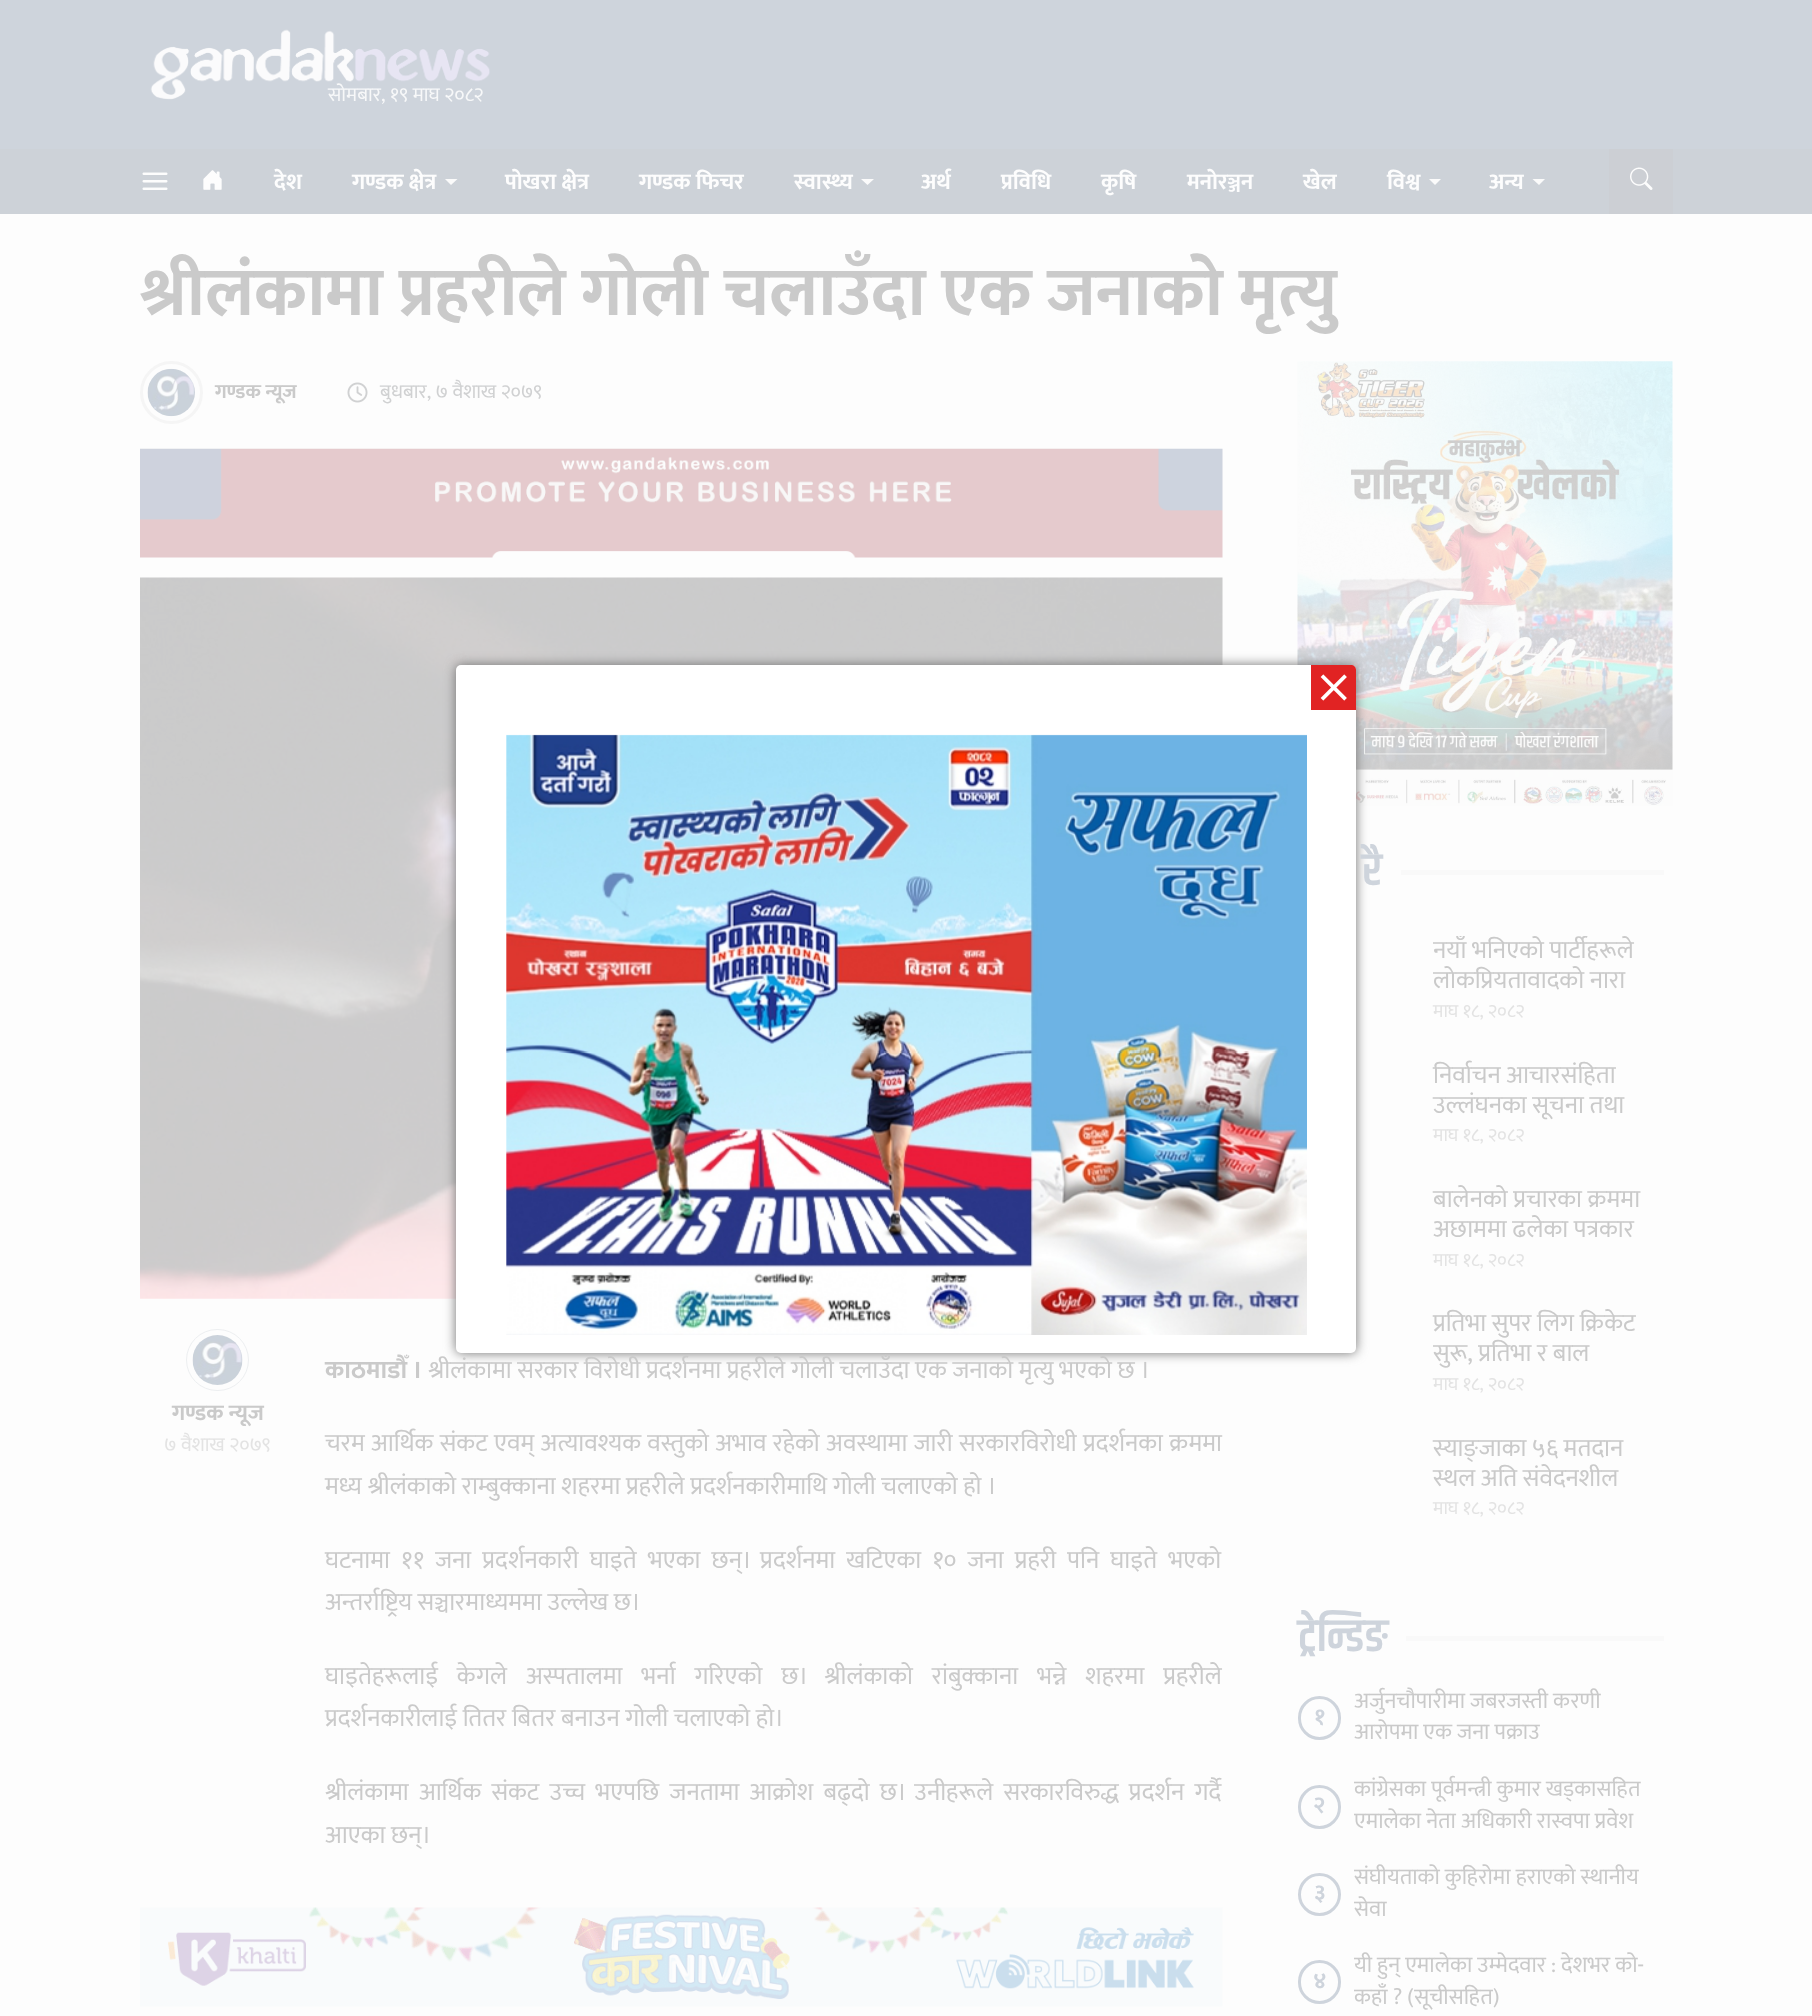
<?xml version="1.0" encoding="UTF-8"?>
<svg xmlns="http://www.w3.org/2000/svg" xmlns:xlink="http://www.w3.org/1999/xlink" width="1812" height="2016">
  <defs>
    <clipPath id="clip1"><rect x="1433" y="936" width="225" height="60" /></clipPath>
    <clipPath id="clip2"><rect x="1433" y="1309" width="225" height="60" /></clipPath>
    <clipPath id="clip3"><rect x="1354" y="1775" width="299" height="63" /></clipPath>
    <clipPath id="clip4"><rect x="1354" y="1863" width="299" height="63" /></clipPath>
    <clipPath id="clip5"><rect x="1354" y="1951" width="299" height="63" /></clipPath>
  </defs>
  <rect width="100%" height="100%" fill="#fdfdfd" />
  <rect width="1812" height="149" fill="#ced4dc" />
  <rect y="149" width="1812" height="65" fill="#cdd2d8" />
  <image x="142" y="172" width="26" height="18" xlink:href="image2.png" />
  <image x="203" y="170" width="19" height="20" xlink:href="image3.png" />
  <path d="M 445 179 h 12.5 l -6.5 6 z" fill="#fbfbfb" />
  <path d="M 861 179 h 13 l -6.5 6 z" fill="#fbfbfb" />
  <path d="M 1429 179 h 12 l -6 6 z" fill="#fbfbfb" />
  <path d="M 1532.5 179 h 12.5 l -6 6 z" fill="#fbfbfb" />
  <rect x="1609" y="149" width="64" height="65" fill="#cccfd4" />
  <image x="1630" y="167" width="23" height="23" xlink:href="image4.png" />
  <circle cx="171.5" cy="392.5" r="30" fill="none" stroke="#f5f5f5" stroke-width="3" />
  <image x="147" y="368" width="48" height="49" xlink:href="image5.png" />
  <image x="347" y="382" width="21" height="21" xlink:href="image6.png" />
  <image x="140" y="448" width="1083" height="110" xlink:href="image7.png" />
  <image x="140" y="577" width="1083" height="722" xlink:href="image8.png" />
  <rect x="186.5" y="1329.5" width="62" height="61" rx="30.5" fill="none" stroke="#edeff1" />
  <image x="192" y="1335" width="51" height="50" xlink:href="image9.png" />
  <image x="140" y="1907" width="1083" height="100" xlink:href="image10.png" />
  <image x="1297" y="361" width="376" height="445" xlink:href="image11.png" />
  <rect x="1401" y="870" width="263" height="5" fill="#f9f9f9" />
  <rect x="1406" y="1636" width="258" height="5" fill="#f9f9f9" />
  <rect x="1299.5" y="1697.5" width="40" height="41" rx="20" fill="none" stroke="#ced4dc" stroke-width="3" />
  <rect x="1299.5" y="1786.5" width="40" height="41" rx="20" fill="none" stroke="#ced4dc" stroke-width="3" />
  <circle cx="1319.5" cy="1894.5" r="20" fill="none" stroke="#ced4dc" stroke-width="3" />
  <rect x="1299.5" y="1961.5" width="40" height="41" rx="20" fill="none" stroke="#ced4dc" stroke-width="3" />
  <rect x="456" y="665" width="900" height="688" rx="5" fill="#707070" filter="blur(6px)" />
  <text x="328" y="101" style="font-family: Mukta; font-size: 20px; fill: #f7f8f9">सोमबार, १९ माघ २०८२</text>
  <image x="150" y="29" width="341" height="71" xlink:href="image1.png" />
  <text x="274" y="189" style="font-family: Mukta; font-size: 22.5px; font-weight: bold; fill: #fdfdfd">देश</text>
  <text x="352" y="189" style="font-family: Mukta; font-size: 22.5px; font-weight: bold; fill: #fdfdfd">गण्डक क्षेत्र</text>
  <text x="505" y="189" style="font-family: Mukta; font-size: 22.5px; font-weight: bold; fill: #fdfdfd">पोखरा क्षेत्र</text>
  <text x="639" y="189" style="font-family: Mukta; font-size: 22.5px; font-weight: bold; fill: #fdfdfd">गण्डक फिचर</text>
  <text x="794" y="189" style="font-family: Mukta; font-size: 22.5px; font-weight: bold; fill: #fdfdfd">स्वास्थ्य</text>
  <text x="921" y="189" style="font-family: Mukta; font-size: 22.5px; font-weight: bold; fill: #fdfdfd">अर्थ</text>
  <text x="1001" y="189" style="font-family: Mukta; font-size: 22.5px; font-weight: bold; fill: #fdfdfd">प्रविधि</text>
  <text x="1101" y="189" style="font-family: Mukta; font-size: 22.5px; font-weight: bold; fill: #fdfdfd">कृषि</text>
  <text x="1187" y="189" style="font-family: Mukta; font-size: 22.5px; font-weight: bold; fill: #fdfdfd">मनोरञ्जन</text>
  <text x="1303" y="189" style="font-family: Mukta; font-size: 22.5px; font-weight: bold; fill: #fdfdfd">खेल</text>
  <text x="1387" y="189" style="font-family: Mukta; font-size: 22.5px; font-weight: bold; fill: #fdfdfd">विश्व</text>
  <text x="1489" y="189" style="font-family: Mukta; font-size: 22.5px; font-weight: bold; fill: #fdfdfd">अन्य</text>
  <text x="140" y="315" style="font-family: Mukta; font-size: 68.75px; font-weight: bold; fill: #cacaca">श्रीलंकामा प्रहरीले गोली चलाउँदा एक जनाको मृत्यु</text>
  <text x="215" y="398" style="font-family: Mukta; font-size: 20px; font-weight: bold; fill: #cacaca">गण्डक न्यूज</text>
  <text x="380" y="398" style="font-family: Mukta; font-size: 20px; fill: #d0d1d2">बुधबार, ७ वैशाख २०७९</text>
  <text x="172" y="1420" style="font-family: Mukta; font-size: 22.5px; font-weight: bold; fill: #cacaca">गण्डक न्यूज</text>
  <text x="164" y="1451" style="font-family: Mukta; font-size: 20px; fill: #e3e3e3">७ वैशाख २०७९</text>
  <text x="325" y="1378" style="font-family: Mukta; font-size: 25px; font-weight: bold; fill: #cacaca">काठमाडौँ ।</text>
  <text x="428" y="1378" style="font-family: Mukta; font-size: 25px; fill: #cacaca">श्रीलंकामा सरकार विरोधी प्रदर्शनमा प्रहरीले गोली चलाउँदा एक जनाको मृत्यु भएको छ ।</text>
  <text x="325" y="1451" word-spacing="0.75" style="font-family: Mukta; font-size: 25px; fill: #cacaca">चरम आर्थिक संकट एवम् अत्यावश्यक वस्तुको अभाव रहेको अवस्थामा जारी सरकारविरोधी प्रदर्शनका क्रममा</text>
  <text x="325" y="1494" style="font-family: Mukta; font-size: 25px; fill: #cacaca">मध्य श्रीलंकाको राम्बुक्काना शहरमा प्रहरीले प्रदर्शनकारीमाथि गोली चलाएको हो ।</text>
  <text x="325" y="1568" word-spacing="5.5" style="font-family: Mukta; font-size: 25px; fill: #cacaca">घटनामा ११ जना प्रदर्शनकारी घाइते भएका छन्। प्रदर्शनमा खटिएका १० जना प्रहरी पनि घाइते भएको</text>
  <text x="325" y="1610" style="font-family: Mukta; font-size: 25px; fill: #cacaca">अन्तर्राष्ट्रिय सञ्चारमाध्यममा उल्लेख छ।</text>
  <text x="325" y="1684" word-spacing="13.25" style="font-family: Mukta; font-size: 25px; fill: #cacaca">घाइतेहरूलाई केगले अस्पतालमा भर्ना गरिएको छ। श्रीलंकाको रांबुक्काना भन्ने शहरमा प्रहरीले</text>
  <text x="325" y="1726" style="font-family: Mukta; font-size: 25px; fill: #cacaca">प्रदर्शनकारीलाई तितर बितर बनाउन गोली चलाएको हो।</text>
  <text x="325" y="1800" word-spacing="4.6" style="font-family: Mukta; font-size: 25px; fill: #cacaca">श्रीलंकामा आर्थिक संकट उच्च भएपछि जनतामा आक्रोश बढ्दो छ। उनीहरूले सरकारविरुद्ध प्रदर्शन गर्दै</text>
  <text x="325" y="1843" style="font-family: Mukta; font-size: 25px; fill: #cacaca">आएका छन्।</text>
  <text x="1362" y="885" style="font-family: Khand; font-size: 46px; font-weight: 600; fill: #ced4dc">रै</text>
  <g clip-path="url(#clip1)">
    <text x="1433" y="958" style="font-family: Mukta; font-size: 25px; fill: #cacaca">नयाँ भनिएको पार्टीहरूले</text>
    <text x="1433" y="988" style="font-family: Mukta; font-size: 25px; fill: #cacaca">लोकप्रियतावादको नारा</text>
  </g>
  <text x="1433" y="1017" style="font-family: Mukta; font-size: 18.75px; fill: #e3e3e3">माघ १८, २०८२</text>
  <text x="1433" y="1083" style="font-family: Mukta; font-size: 25px; fill: #cacaca">निर्वाचन आचारसंहिता</text>
  <text x="1433" y="1113" style="font-family: Mukta; font-size: 25px; fill: #cacaca">उल्लंघनका सूचना तथा</text>
  <text x="1433" y="1141" style="font-family: Mukta; font-size: 18.75px; fill: #e3e3e3">माघ १८, २०८२</text>
  <text x="1433" y="1207" style="font-family: Mukta; font-size: 25px; fill: #cacaca">बालेनको प्रचारका क्रममा</text>
  <text x="1433" y="1237" style="font-family: Mukta; font-size: 25px; fill: #cacaca">अछाममा ढलेका पत्रकार</text>
  <text x="1433" y="1266" style="font-family: Mukta; font-size: 18.75px; fill: #e3e3e3">माघ १८, २०८२</text>
  <text x="1433" y="1331" style="font-family: Mukta; font-size: 25px; fill: #cacaca">प्रतिभा सुपर लिग क्रिकेट</text>
  <g clip-path="url(#clip2)">
    <text x="1433" y="1361" style="font-family: Mukta; font-size: 25px; fill: #cacaca">सुरू, प्रतिभा र बाल</text>
  </g>
  <text x="1433" y="1390" style="font-family: Mukta; font-size: 18.75px; fill: #e3e3e3">माघ १८, २०८२</text>
  <text x="1433" y="1456" style="font-family: Mukta; font-size: 25px; fill: #cacaca">स्याङ्जाका ५६ मतदान</text>
  <text x="1433" y="1486" style="font-family: Mukta; font-size: 25px; fill: #cacaca">स्थल अति संवेदनशील</text>
  <text x="1433" y="1514" style="font-family: Mukta; font-size: 18.75px; fill: #e3e3e3">माघ १८, २०८२</text>
  <text x="1298" y="1651" style="font-family: Khand; font-size: 46px; font-weight: 600; fill: #ced4dc">ट्रेन्डिङ</text>
  <text x="1314" y="1724" style="font-family: Mukta; font-size: 22.5px; font-weight: bold; fill: #ced4dc">१</text>
  <text x="1354" y="1708" style="font-family: Mukta; font-size: 22.5px; fill: #cacaca">अर्जुनचौपारीमा जबरजस्ती करणी</text>
  <text x="1354" y="1739" style="font-family: Mukta; font-size: 22.5px; fill: #cacaca">आरोपमा एक जना पक्राउ</text>
  <text x="1313" y="1812" style="font-family: Mukta; font-size: 22.5px; font-weight: bold; fill: #ced4dc">२</text>
  <g clip-path="url(#clip3)">
    <text x="1354" y="1796" style="font-family: Mukta; font-size: 22.5px; fill: #cacaca">कांग्रेसका पूर्वमन्त्री कुमार खड्कासहित</text>
    <text x="1354" y="1828" style="font-family: Mukta; font-size: 22.5px; fill: #cacaca">एमालेका नेता अधिकारी रास्वपा प्रवेश</text>
  </g>
  <text x="1314" y="1900" style="font-family: Mukta; font-size: 22.5px; font-weight: bold; fill: #ced4dc">३</text>
  <g clip-path="url(#clip4)">
    <text x="1354" y="1884" style="font-family: Mukta; font-size: 22.5px; fill: #cacaca">संघीयताको कुहिरोमा हराएको स्थानीय</text>
    <text x="1354" y="1916" style="font-family: Mukta; font-size: 22.5px; fill: #cacaca">सेवा</text>
  </g>
  <text x="1313" y="1988" style="font-family: Mukta; font-size: 22.5px; font-weight: bold; fill: #ced4dc">४</text>
  <g clip-path="url(#clip5)">
    <text x="1354" y="1972" style="font-family: Mukta; font-size: 22.5px; fill: #cacaca">यी हुन् एमालेका उम्मेदवार : देशभर को-</text>
    <text x="1354" y="2004" style="font-family: Mukta; font-size: 22.5px; fill: #cacaca">कहाँ ? (सूचीसहित)</text>
  </g>
  <rect x="456" y="665" width="900" height="688" rx="5" fill="#ffffff" />
  <path d="M 1311 665 h 40 c 3 0 5 2 5 5 v 40 h -45 z" fill="#e12323" />
  <image x="1320" y="674" width="27" height="27" xlink:href="image12.png" />
  <image x="506" y="734" width="801" height="601" xlink:href="image13.png" />
</svg>
